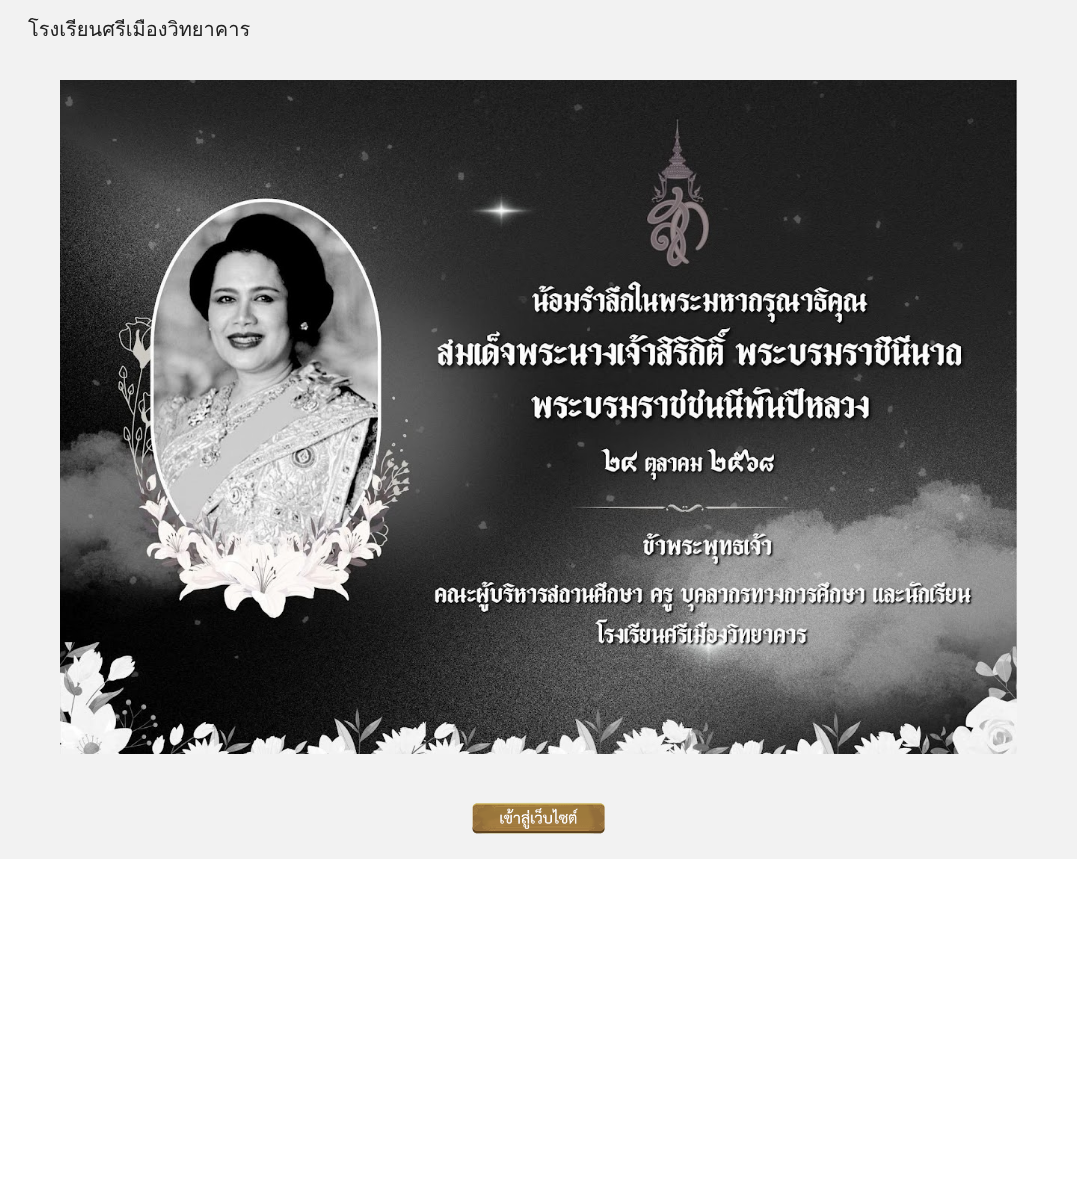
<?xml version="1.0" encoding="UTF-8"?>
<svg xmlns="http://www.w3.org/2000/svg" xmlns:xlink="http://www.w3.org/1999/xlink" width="1077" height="1195">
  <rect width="100%" height="100%" fill="#ffffff" />
  <rect width="1077" height="859" fill="#f2f2f2" />
  <image x="60" y="80" width="957" height="674" xlink:href="image1.png" />
  <image x="470" y="802" width="135" height="32" xlink:href="image2.png" />
  <text x="28" y="36" style="font-family: Loma; font-size: 20px; fill: #212121">โรงเรียนศรีเมืองวิทยาคาร</text>
</svg>
